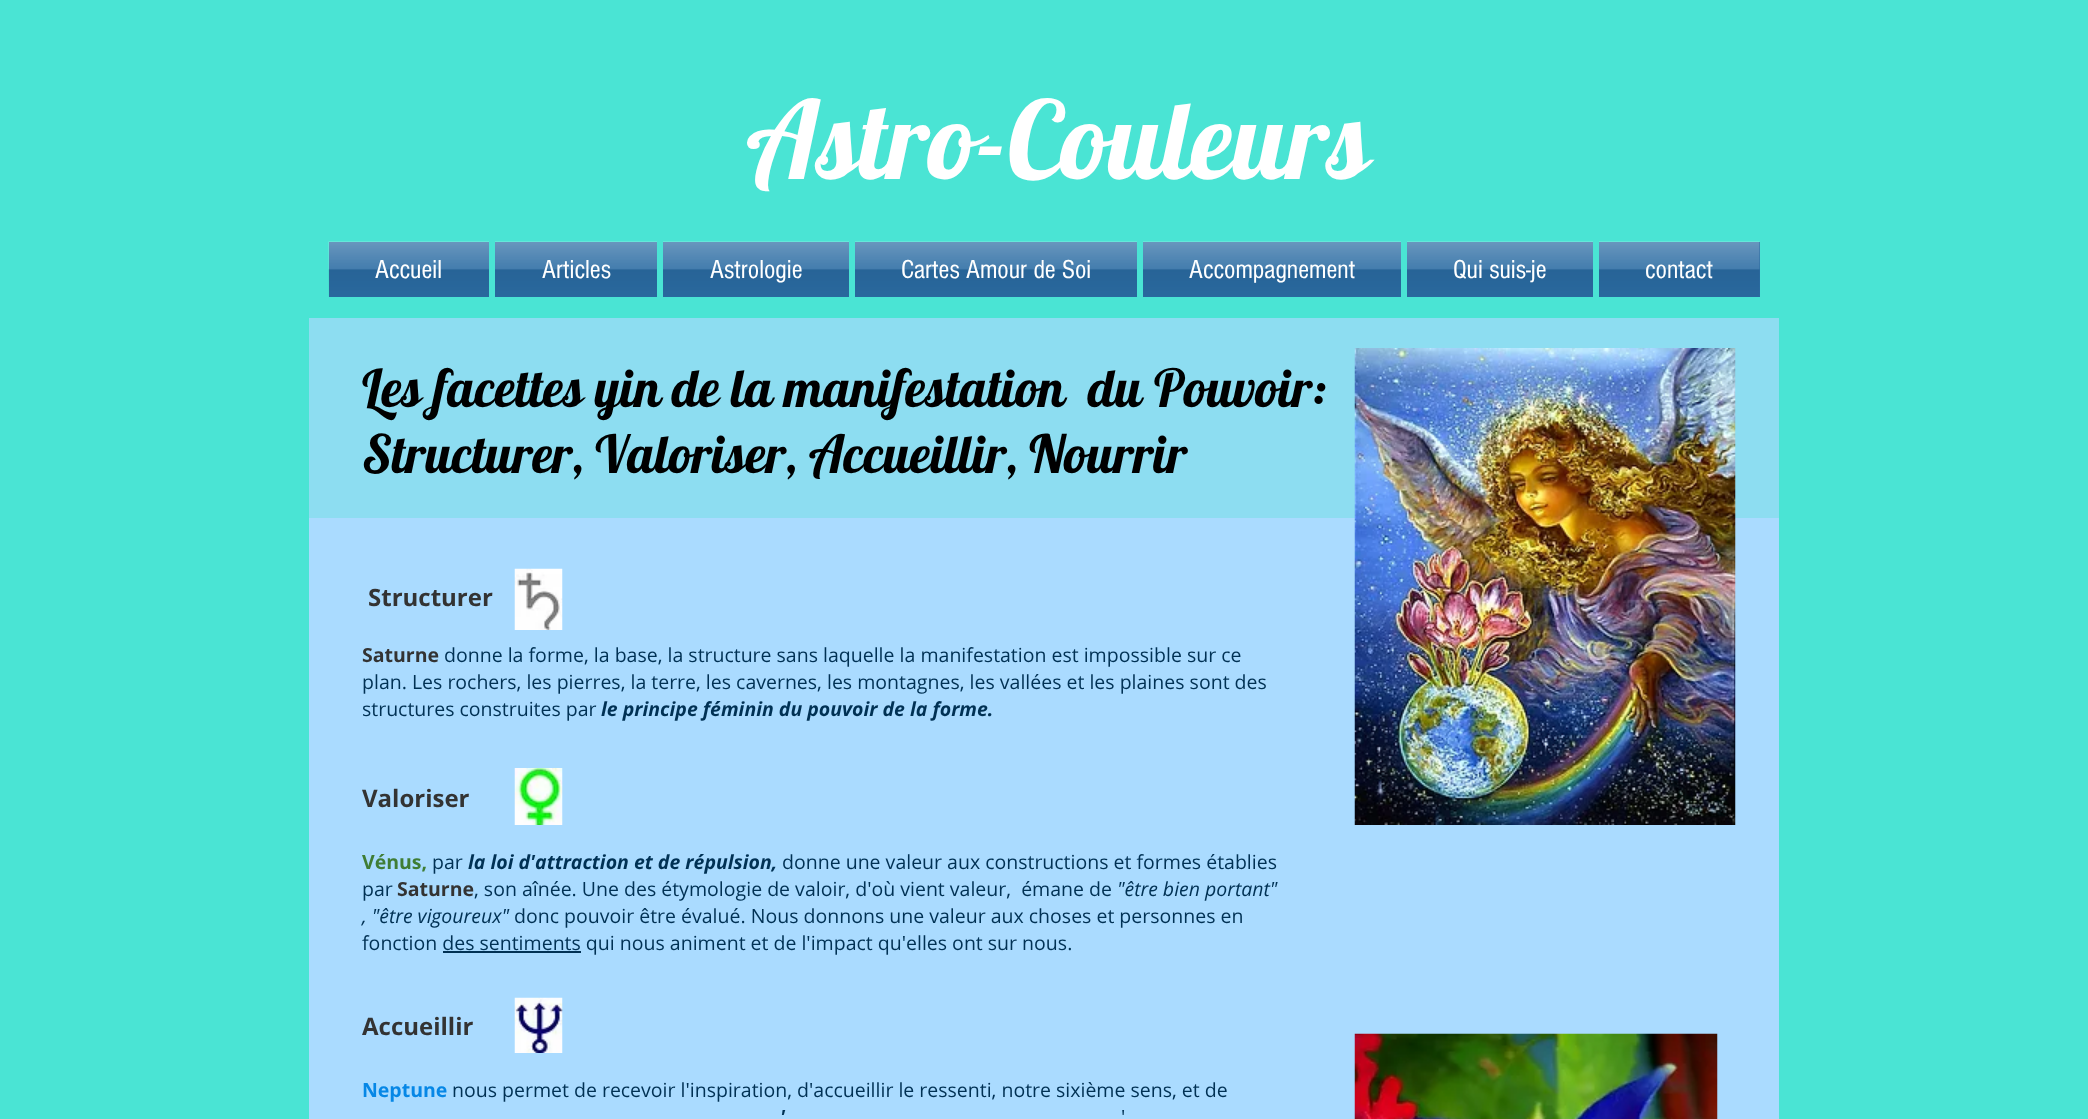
<?xml version="1.0" encoding="UTF-8"?>
<svg xmlns="http://www.w3.org/2000/svg" xmlns:xlink="http://www.w3.org/1999/xlink" width="2088" height="1119">
  <style>*{font-kerning:none!important;font-variant-ligatures:none!important}</style>
  <rect width="100%" height="100%" fill="#4ae4d4" />
  <rect x="329" y="242" width="160" height="55" fill="#2b6ca3" />
  <image x="328" y="241" width="161" height="56" xlink:href="image1.png" />
  <rect x="495" y="242" width="162" height="55" fill="#2b6ca3" />
  <image x="495" y="241" width="162" height="56" xlink:href="image2.png" />
  <rect x="663" y="242" width="186" height="55" fill="#2b6ca3" />
  <image x="663" y="241" width="186" height="56" xlink:href="image3.png" />
  <rect x="855" y="242" width="282" height="55" fill="#2b6ca3" />
  <image x="855" y="241" width="282" height="56" xlink:href="image4.png" />
  <rect x="1143" y="242" width="258" height="55" fill="#2b6ca3" />
  <image x="1143" y="241" width="258" height="56" xlink:href="image5.png" />
  <rect x="1407" y="242" width="186" height="55" fill="#2b6ca3" />
  <image x="1407" y="241" width="186" height="56" xlink:href="image3.png" />
  <rect x="1599" y="242" width="161" height="55" fill="#2b6ca3" />
  <image x="1599" y="241" width="161" height="56" xlink:href="image6.png" />
  <rect x="309" y="318" width="1470" height="200" fill="#8dddf1" />
  <rect x="309" y="518" width="1470" height="601" fill="#aadbff" />
  <image x="1354" y="348" width="382" height="477" xlink:href="image7.png" />
  <image x="514" y="568" width="49" height="62" xlink:href="image8.png" />
  <rect x="443" y="951" width="138" height="2" fill="#003154" />
  <image x="514" y="768" width="49" height="57" xlink:href="image9.png" />
  <image x="514" y="997" width="49" height="56" xlink:href="image10.png" />
  <image x="1354" y="1033" width="364" height="86" xlink:href="image11.png" />
  <text x="746" y="179" style="font-family: Lobster; font-size: 108px; fill: #ffffff">Astro-Couleurs</text>
  <text x="375" y="278" style="font-family: 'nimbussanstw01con'; font-size: 27px; fill: #ffffff">Accueil</text>
  <text x="542" y="278" style="font-family: 'nimbussanstw01con'; font-size: 27px; fill: #ffffff">Articles</text>
  <text x="710" y="278" style="font-family: 'nimbussanstw01con'; font-size: 27px; fill: #ffffff">Astrologie</text>
  <text x="901" y="278" style="font-family: 'nimbussanstw01con'; font-size: 27px; fill: #ffffff">Cartes Amour de Soi</text>
  <text x="1189" y="278" style="font-family: 'nimbussanstw01con'; font-size: 27px; fill: #ffffff">Accompagnement</text>
  <text x="1453" y="278" style="font-family: 'nimbussanstw01con'; font-size: 27px; fill: #ffffff">Qui suis-je</text>
  <text x="1645" y="278" style="font-family: 'nimbussanstw01con'; font-size: 27px; fill: #ffffff">contact</text>
  <text x="362" y="407" style="font-family: Lobster; font-size: 52.5px; fill: #000000">Les facettes yin</text>
  <text x="672" y="407" style="font-family: Lobster; font-size: 52.5px; fill: #000000" xml:space="preserve">de la manifestation  du</text>
  <text x="1154" y="407" style="font-family: Lobster; font-size: 52.5px; fill: #000000">Pouvoir:</text>
  <text x="362" y="473" style="font-family: Lobster; font-size: 52.5px; fill: #000000">Structurer, Valoriser, Accueillir, Nourrir</text>
  <text x="368" y="606" style="font-family: Open Sans; font-size: 24px; font-weight: bold; fill: #333333">Structurer</text>
  <text x="362" y="662" style="font-family: Open Sans; font-size: 19.5px; font-weight: bold; fill: #333333">Saturne</text>
  <text x="444" y="662" style="font-family: Open Sans; font-size: 19.5px; fill: #003154">donne la forme, la base, la structure sans laquelle la manifestation est impossible sur ce</text>
  <text x="362" y="689" style="font-family: Open Sans; font-size: 19.5px; fill: #003154">plan. Les rochers, les pierres, la terre, les cavernes, les montagnes, les vallées et les plaines sont des</text>
  <text x="362" y="716" style="font-family: Open Sans; font-size: 19.5px; fill: #003154">structures construites par</text>
  <text x="601" y="716" style="font-family: Open Sans; font-size: 19.5px; font-weight: bold; font-style: italic; fill: #003154">le principe féminin du pouvoir de la forme.</text>
  <text x="362" y="807" style="font-family: Open Sans; font-size: 24px; font-weight: bold; fill: #333333">Valoriser</text>
  <text x="362" y="869" style="font-family: Open Sans; font-size: 19.5px; font-weight: bold; fill: #3f7d35">Vénus,</text>
  <text x="432" y="869" style="font-family: Open Sans; font-size: 19.5px; fill: #003154">par</text>
  <text x="468" y="869" style="font-family: Open Sans; font-size: 19.5px; font-weight: bold; font-style: italic; fill: #003154">la loi d'attraction et de répulsion,</text>
  <text x="782" y="869" style="font-family: Open Sans; font-size: 19.5px; fill: #003154">donne une valeur aux constructions et formes établies</text>
  <text x="362" y="896" style="font-family: Open Sans; font-size: 19.5px; fill: #003154">par</text>
  <text x="397" y="896" style="font-family: Open Sans; font-size: 19.5px; font-weight: bold; fill: #333333">Saturne</text>
  <text x="474" y="896" style="font-family: Open Sans; font-size: 19.5px; fill: #003154" xml:space="preserve">, son aînée. Une des étymologie de valoir, d'où vient valeur,  émane de</text>
  <text x="1117" y="896" style="font-family: Open Sans; font-size: 19.5px; font-style: italic; fill: #003154">"être bien portant"</text>
  <text x="362" y="923" style="font-family: Open Sans; font-size: 19.5px; font-style: italic; fill: #003154">, "être vigoureux"</text>
  <text x="514" y="923" style="font-family: Open Sans; font-size: 19.5px; fill: #003154">donc pouvoir être évalué. Nous donnons une valeur aux choses et personnes en</text>
  <text x="362" y="950" style="font-family: Open Sans; font-size: 19.5px; fill: #003154">fonction des sentiments qui nous animent et de l'impact qu'elles ont sur nous.</text>
  <text x="362" y="1035" style="font-family: Open Sans; font-size: 24px; font-weight: bold; fill: #333333">Accueillir</text>
  <text x="362" y="1097" style="font-family: Open Sans; font-size: 19.5px; font-weight: bold; fill: #0687e6">Neptune</text>
  <text x="452" y="1097" style="font-family: Open Sans; font-size: 19.5px; fill: #003154">nous permet de recevoir l'inspiration, d'accueillir le ressenti, notre sixième sens, et de</text>
  <text x="780" y="1124" style="font-family: Open Sans; font-size: 19.5px; font-weight: bold; font-style: italic; fill: #003154">'</text>
  <text x="1121" y="1124" style="font-family: Open Sans; font-size: 19.5px; fill: #003154">'</text>
</svg>
